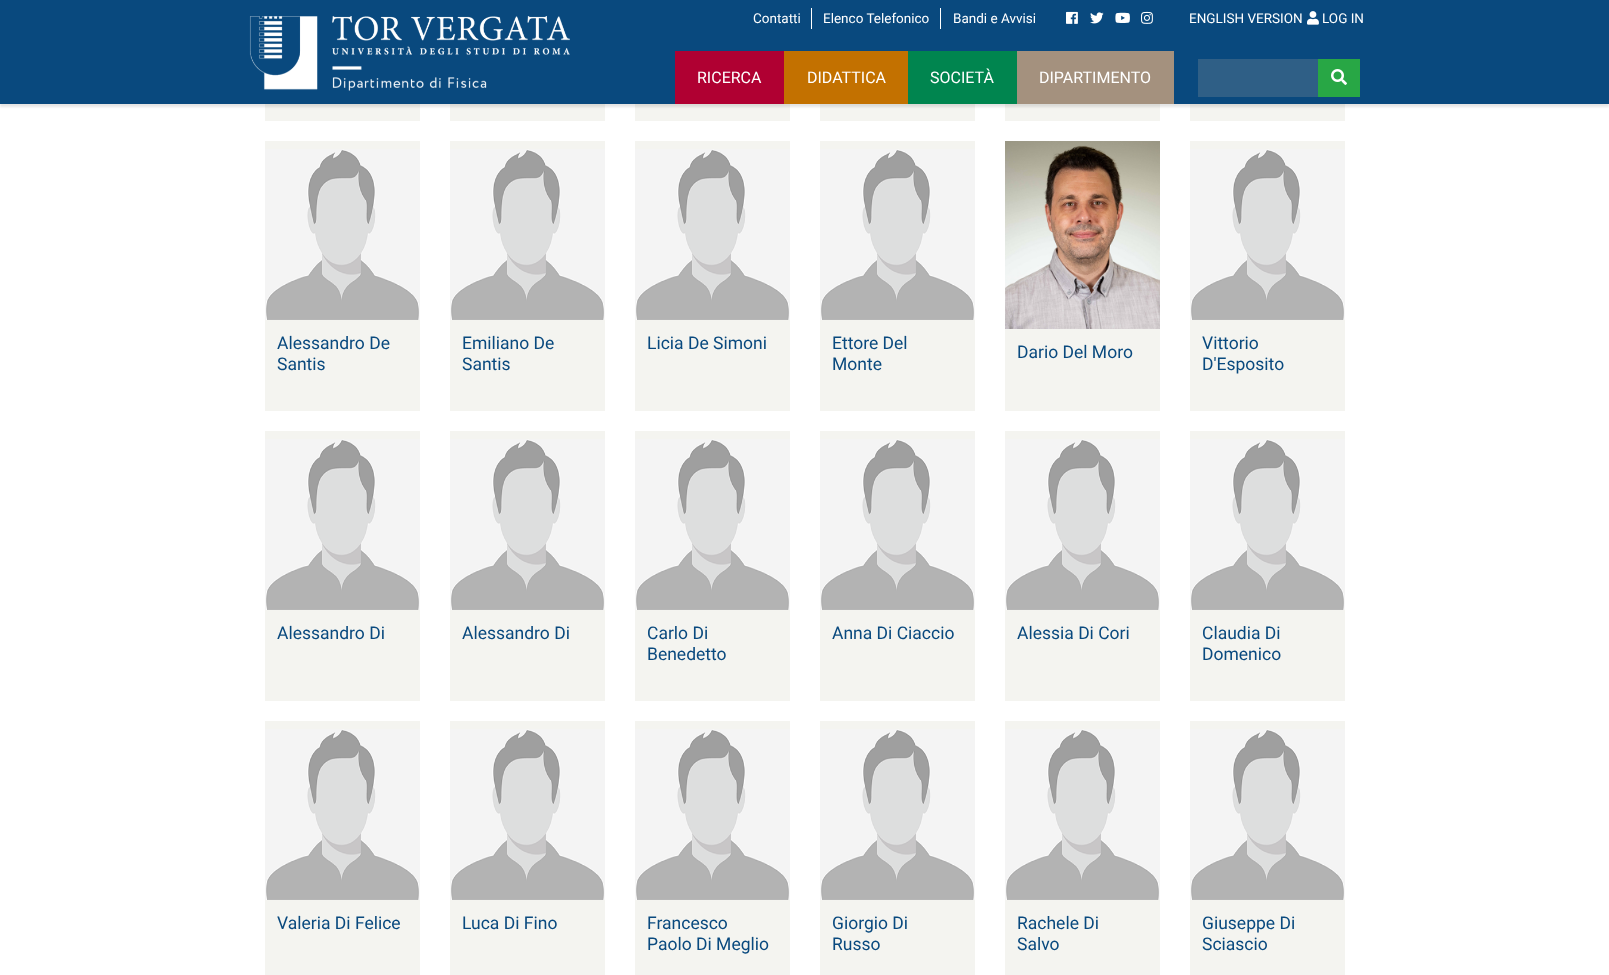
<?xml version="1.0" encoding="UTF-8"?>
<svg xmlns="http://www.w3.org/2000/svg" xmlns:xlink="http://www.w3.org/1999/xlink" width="1609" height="975">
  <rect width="100%" height="100%" fill="#ffffff" />
  <rect x="265" y="104" width="155" height="17" fill="#f4f4f0" />
  <rect x="450" y="104" width="155" height="17" fill="#f4f4f0" />
  <rect x="635" y="104" width="155" height="17" fill="#f4f4f0" />
  <rect x="820" y="104" width="155" height="17" fill="#f4f4f0" />
  <rect x="1005" y="104" width="155" height="17" fill="#f4f4f0" />
  <rect x="1190" y="104" width="155" height="17" fill="#f4f4f0" />
  <rect y="3" width="1609" height="104" fill="#000000" fill-opacity="0.1" filter="blur(1px)" />
  <rect width="1609" height="104" fill="#09497e" />
  <image x="249" y="16" width="321" height="75" xlink:href="image1.png" />
  <rect x="811" y="8" width="1" height="21" fill="#ffffff" />
  <rect x="940" y="8" width="1" height="21" fill="#ffffff" />
  <image x="1066" y="11" width="12" height="13" xlink:href="image2.png" />
  <image x="1090" y="12" width="14" height="12" xlink:href="image3.png" />
  <image x="1115" y="12" width="15" height="11" xlink:href="image4.png" />
  <image x="1141" y="11" width="12" height="13" xlink:href="image5.png" />
  <image x="1307" y="11" width="12" height="14" xlink:href="image6.png" />
  <rect x="675" y="51" width="109" height="53" fill="#b00032" />
  <rect x="784" y="51" width="124" height="53" fill="#c37100" />
  <rect x="908" y="51" width="109" height="53" fill="#00854f" />
  <rect x="1017" y="51" width="157" height="53" fill="#a4917e" />
  <rect x="1198" y="59" width="120" height="38" fill="#2f5f86" />
  <rect x="1318" y="59" width="42" height="38" fill="#28a745" />
  <image x="1331" y="69" width="16" height="16" xlink:href="image7.png" />
  <rect x="265" y="141" width="155" height="270" fill="#f4f4f0" />
  <image x="265" y="149" width="155" height="171" xlink:href="image8.png" />
  <rect x="450" y="141" width="155" height="270" fill="#f4f4f0" />
  <image x="450" y="149" width="155" height="171" xlink:href="image9.png" />
  <rect x="635" y="141" width="155" height="270" fill="#f4f4f0" />
  <image x="635" y="149" width="155" height="171" xlink:href="image10.png" />
  <rect x="820" y="141" width="155" height="270" fill="#f4f4f0" />
  <image x="820" y="149" width="155" height="171" xlink:href="image10.png" />
  <rect x="1005" y="329" width="155" height="82" fill="#f4f4f0" />
  <image x="1005" y="141" width="155" height="188" xlink:href="image11.png" />
  <rect x="1190" y="141" width="155" height="270" fill="#f4f4f0" />
  <image x="1190" y="149" width="155" height="171" xlink:href="image8.png" />
  <rect x="265" y="431" width="155" height="270" fill="#f4f4f0" />
  <image x="265" y="439" width="155" height="171" xlink:href="image12.png" />
  <rect x="450" y="431" width="155" height="270" fill="#f4f4f0" />
  <image x="450" y="439" width="155" height="171" xlink:href="image13.png" />
  <rect x="635" y="431" width="155" height="270" fill="#f4f4f0" />
  <image x="635" y="439" width="155" height="171" xlink:href="image14.png" />
  <rect x="820" y="431" width="155" height="270" fill="#f4f4f0" />
  <image x="820" y="439" width="155" height="171" xlink:href="image14.png" />
  <rect x="1005" y="431" width="155" height="270" fill="#f4f4f0" />
  <image x="1005" y="439" width="155" height="171" xlink:href="image12.png" />
  <rect x="1190" y="431" width="155" height="270" fill="#f4f4f0" />
  <image x="1190" y="439" width="155" height="171" xlink:href="image12.png" />
  <rect x="265" y="721" width="155" height="254" fill="#f4f4f0" />
  <image x="265" y="729" width="155" height="171" xlink:href="image8.png" />
  <rect x="450" y="721" width="155" height="254" fill="#f4f4f0" />
  <image x="450" y="729" width="155" height="171" xlink:href="image9.png" />
  <rect x="635" y="721" width="155" height="254" fill="#f4f4f0" />
  <image x="635" y="729" width="155" height="171" xlink:href="image10.png" />
  <rect x="820" y="721" width="155" height="254" fill="#f4f4f0" />
  <image x="820" y="729" width="155" height="171" xlink:href="image10.png" />
  <rect x="1005" y="721" width="155" height="254" fill="#f4f4f0" />
  <image x="1005" y="729" width="155" height="171" xlink:href="image8.png" />
  <rect x="1190" y="721" width="155" height="254" fill="#f4f4f0" />
  <image x="1190" y="729" width="155" height="171" xlink:href="image8.png" />
  <text x="753" y="23" style="font-family: Roboto; font-size: 13.5px; fill: #ffffff">Contatti</text>
  <text x="823" y="23" style="font-family: Roboto; font-size: 13.5px; fill: #ffffff">Elenco Telefonico</text>
  <text x="953" y="23" style="font-family: Roboto; font-size: 13.5px; fill: #ffffff">Bandi e Avvisi</text>
  <text x="1189" y="23" style="font-family: Roboto; font-size: 13.5px; fill: #ffffff">ENGLISH VERSION</text>
  <text x="1322" y="23" style="font-family: Roboto; font-size: 13.5px; fill: #ffffff">LOG IN</text>
  <text x="697" y="83" style="font-family: Roboto; font-size: 16px; fill: #ffffff">RICERCA</text>
  <text x="807" y="83" style="font-family: Roboto; font-size: 16px; fill: #ffffff">DIDATTICA</text>
  <text x="930" y="83" style="font-family: Roboto; font-size: 16px; fill: #ffffff">SOCIETÀ</text>
  <text x="1039" y="83" style="font-family: Roboto; font-size: 16px; fill: #ffffff">DIPARTIMENTO</text>
  <text x="277" y="349" style="font-family: Roboto; font-size: 17.5px; fill: #09497e">Alessandro De</text>
  <text x="277" y="370" style="font-family: Roboto; font-size: 17.5px; fill: #09497e">Santis</text>
  <text x="462" y="349" style="font-family: Roboto; font-size: 17.5px; fill: #09497e">Emiliano De</text>
  <text x="462" y="370" style="font-family: Roboto; font-size: 17.5px; fill: #09497e">Santis</text>
  <text x="647" y="349" style="font-family: Roboto; font-size: 17.5px; fill: #09497e">Licia De Simoni</text>
  <text x="832" y="349" style="font-family: Roboto; font-size: 17.5px; fill: #09497e">Ettore Del</text>
  <text x="832" y="370" style="font-family: Roboto; font-size: 17.5px; fill: #09497e">Monte</text>
  <text x="1017" y="358" style="font-family: Roboto; font-size: 17.5px; fill: #09497e">Dario Del Moro</text>
  <text x="1202" y="349" style="font-family: Roboto; font-size: 17.5px; fill: #09497e">Vittorio</text>
  <text x="1202" y="370" style="font-family: Roboto; font-size: 17.5px; fill: #09497e">D'Esposito</text>
  <text x="277" y="639" style="font-family: Roboto; font-size: 17.5px; fill: #09497e">Alessandro Di</text>
  <text x="462" y="639" style="font-family: Roboto; font-size: 17.5px; fill: #09497e">Alessandro Di</text>
  <text x="647" y="639" style="font-family: Roboto; font-size: 17.5px; fill: #09497e">Carlo Di</text>
  <text x="647" y="660" style="font-family: Roboto; font-size: 17.5px; fill: #09497e">Benedetto</text>
  <text x="832" y="639" style="font-family: Roboto; font-size: 17.5px; fill: #09497e">Anna Di Ciaccio</text>
  <text x="1017" y="639" style="font-family: Roboto; font-size: 17.5px; fill: #09497e">Alessia Di Cori</text>
  <text x="1202" y="639" style="font-family: Roboto; font-size: 17.5px; fill: #09497e">Claudia Di</text>
  <text x="1202" y="660" style="font-family: Roboto; font-size: 17.5px; fill: #09497e">Domenico</text>
  <text x="277" y="929" style="font-family: Roboto; font-size: 17.5px; fill: #09497e">Valeria Di Felice</text>
  <text x="462" y="929" style="font-family: Roboto; font-size: 17.5px; fill: #09497e">Luca Di Fino</text>
  <text x="647" y="929" style="font-family: Roboto; font-size: 17.5px; fill: #09497e">Francesco</text>
  <text x="647" y="950" style="font-family: Roboto; font-size: 17.5px; fill: #09497e">Paolo Di Meglio</text>
  <text x="832" y="929" style="font-family: Roboto; font-size: 17.5px; fill: #09497e">Giorgio Di</text>
  <text x="832" y="950" style="font-family: Roboto; font-size: 17.5px; fill: #09497e">Russo</text>
  <text x="1017" y="929" style="font-family: Roboto; font-size: 17.5px; fill: #09497e">Rachele Di</text>
  <text x="1017" y="950" style="font-family: Roboto; font-size: 17.5px; fill: #09497e">Salvo</text>
  <text x="1202" y="929" style="font-family: Roboto; font-size: 17.5px; fill: #09497e">Giuseppe Di</text>
  <text x="1202" y="950" style="font-family: Roboto; font-size: 17.5px; fill: #09497e">Sciascio</text>
</svg>
